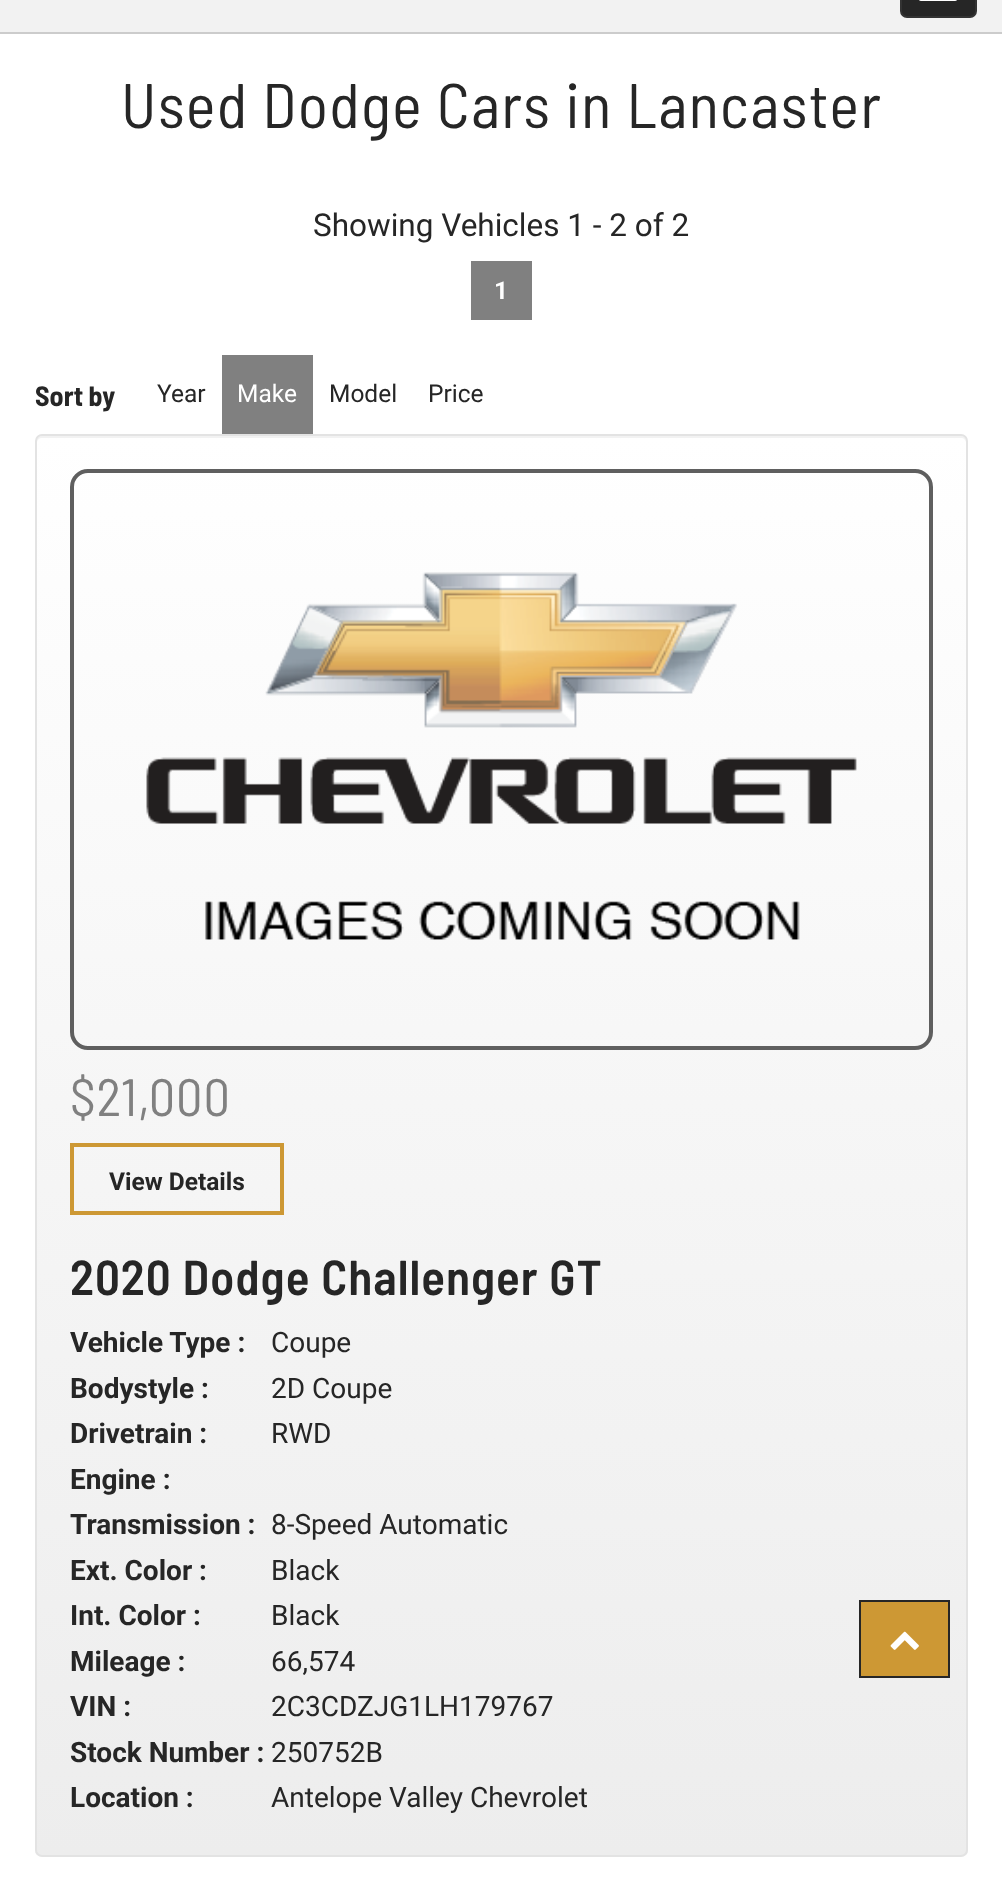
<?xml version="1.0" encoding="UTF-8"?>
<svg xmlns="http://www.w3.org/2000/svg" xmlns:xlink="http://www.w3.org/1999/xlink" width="1002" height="1888">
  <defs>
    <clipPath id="clip1"><rect x="35" y="434" width="933" height="1423" rx="7" /></clipPath>
    <linearGradient id="g1" gradientUnits="userSpaceOnUse" x1="501" y1="436" x2="501" y2="1855"><stop offset="0" stop-color="#ffffff" /><stop offset="0.47" stop-color="#f6f6f6" /><stop offset="1" stop-color="#ededed" /></linearGradient>
  </defs>
  <rect width="100%" height="100%" fill="#ffffff" />
  <rect width="1002" height="32" fill="#f2f2f2" />
  <rect y="32" width="1002" height="2" fill="#cccccc" />
  <rect x="901" y="-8" width="75" height="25" rx="6" fill="#262626" stroke="#333333" stroke-width="2" />
  <rect x="919" y="-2" width="38" height="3" rx="2" fill="#ffffff" />
  <rect x="471" y="261" width="61" height="59" fill="#808080" />
  <rect x="222" y="355" width="91" height="79" fill="#808080" />
  <g clip-path="url(#clip1)">
    <rect x="35" y="436" width="933" height="1419" fill="url(#g1)" />
  </g>
  <path d="M 42 438 h 919 c 3 0 5 2 5 5 v -2 c 0 -3 -2 -5 -5 -5 h -919 c -3 0 -5 2 -5 5 v 2 c 0 -3 2 -5 5 -5 z" fill="#f2f2f2" />
  <rect x="36" y="435" width="931" height="1421" rx="6" fill="none" stroke="#e3e3e3" stroke-width="2" />
  <rect x="72" y="471" width="859" height="577" rx="16" fill="none" stroke="#5f5f5f" stroke-width="4" />
  <image x="146" y="572" width="711" height="368" xlink:href="image1.png" />
  <rect x="72" y="1145" width="210" height="68" fill="none" stroke="#cd9834" stroke-width="4" />
  <rect x="860" y="1601" width="89" height="76" fill="#cd9834" stroke="#262626" stroke-width="2" />
  <image x="890" y="1631" width="29" height="19" xlink:href="image2.png" />
  <text x="121" y="128" style="font-family: Barlow Semi Condensed; font-size: 63px; letter-spacing: 1.25px; fill: #262626">Used Dodge Cars in Lancaster</text>
  <text x="313" y="236" style="font-family: Roboto; font-size: 31.5px; fill: #262626">Showing Vehicles 1 - 2 of 2</text>
  <text x="494" y="299" style="font-family: Roboto; font-size: 24.5px; font-weight: bold; fill: #ffffff">1</text>
  <text x="35" y="406" style="font-family: Barlow Semi Condensed; font-size: 28px; font-weight: bold; fill: #262626">Sort by</text>
  <text x="157" y="402" style="font-family: Roboto; font-size: 24.5px; fill: #262626">Year</text>
  <text x="237" y="402" style="font-family: Roboto; font-size: 24.5px; fill: #ffffff">Make</text>
  <text x="329" y="402" style="font-family: Roboto; font-size: 24.5px; fill: #262626">Model</text>
  <text x="428" y="402" style="font-family: Roboto; font-size: 24.5px; fill: #262626">Price</text>
  <text x="70" y="1116" style="font-family: Barlow Semi Condensed; font-size: 52.5px; letter-spacing: 1px; fill: #808080">$21,000</text>
  <text x="109" y="1190" style="font-family: Roboto; font-size: 24.5px; font-weight: bold; fill: #262626">View Details</text>
  <text x="70" y="1295" style="font-family: Barlow Semi Condensed; font-size: 49px; font-weight: 600; letter-spacing: 1px; fill: #262626">2020 Dodge Challenger GT</text>
  <text x="70" y="1352" style="font-family: Roboto; font-size: 28px; font-weight: bold; fill: #262626">Vehicle Type :</text>
  <text x="271" y="1352" style="font-family: Roboto; font-size: 28px; fill: #262626">Coupe</text>
  <text x="70" y="1398" style="font-family: Roboto; font-size: 28px; font-weight: bold; fill: #262626">Bodystyle :</text>
  <text x="271" y="1398" style="font-family: Roboto; font-size: 28px; fill: #262626">2D Coupe</text>
  <text x="70" y="1443" style="font-family: Roboto; font-size: 28px; font-weight: bold; fill: #262626">Drivetrain :</text>
  <text x="271" y="1443" style="font-family: Roboto; font-size: 28px; fill: #262626">RWD</text>
  <text x="70" y="1489" style="font-family: Roboto; font-size: 28px; font-weight: bold; fill: #262626">Engine :</text>
  <text x="70" y="1534" style="font-family: Roboto; font-size: 28px; font-weight: bold; fill: #262626">Transmission :</text>
  <text x="271" y="1534" style="font-family: Roboto; font-size: 28px; fill: #262626">8-Speed Automatic</text>
  <text x="70" y="1580" style="font-family: Roboto; font-size: 28px; font-weight: bold; fill: #262626">Ext. Color :</text>
  <text x="271" y="1580" style="font-family: Roboto; font-size: 28px; fill: #262626">Black</text>
  <text x="70" y="1625" style="font-family: Roboto; font-size: 28px; font-weight: bold; fill: #262626">Int. Color :</text>
  <text x="271" y="1625" style="font-family: Roboto; font-size: 28px; fill: #262626">Black</text>
  <text x="70" y="1671" style="font-family: Roboto; font-size: 28px; font-weight: bold; fill: #262626">Mileage :</text>
  <text x="271" y="1671" style="font-family: Roboto; font-size: 28px; fill: #262626">66,574</text>
  <text x="70" y="1716" style="font-family: Roboto; font-size: 28px; font-weight: bold; fill: #262626">VIN :</text>
  <text x="271" y="1716" style="font-family: Roboto; font-size: 28px; fill: #262626">2C3CDZJG1LH179767</text>
  <text x="70" y="1762" style="font-family: Roboto; font-size: 28px; font-weight: bold; fill: #262626">Stock Number :</text>
  <text x="271" y="1762" style="font-family: Roboto; font-size: 28px; fill: #262626">250752B</text>
  <text x="70" y="1807" style="font-family: Roboto; font-size: 28px; font-weight: bold; fill: #262626">Location :</text>
  <text x="271" y="1807" style="font-family: Roboto; font-size: 28px; fill: #262626">Antelope Valley Chevrolet</text>
</svg>
